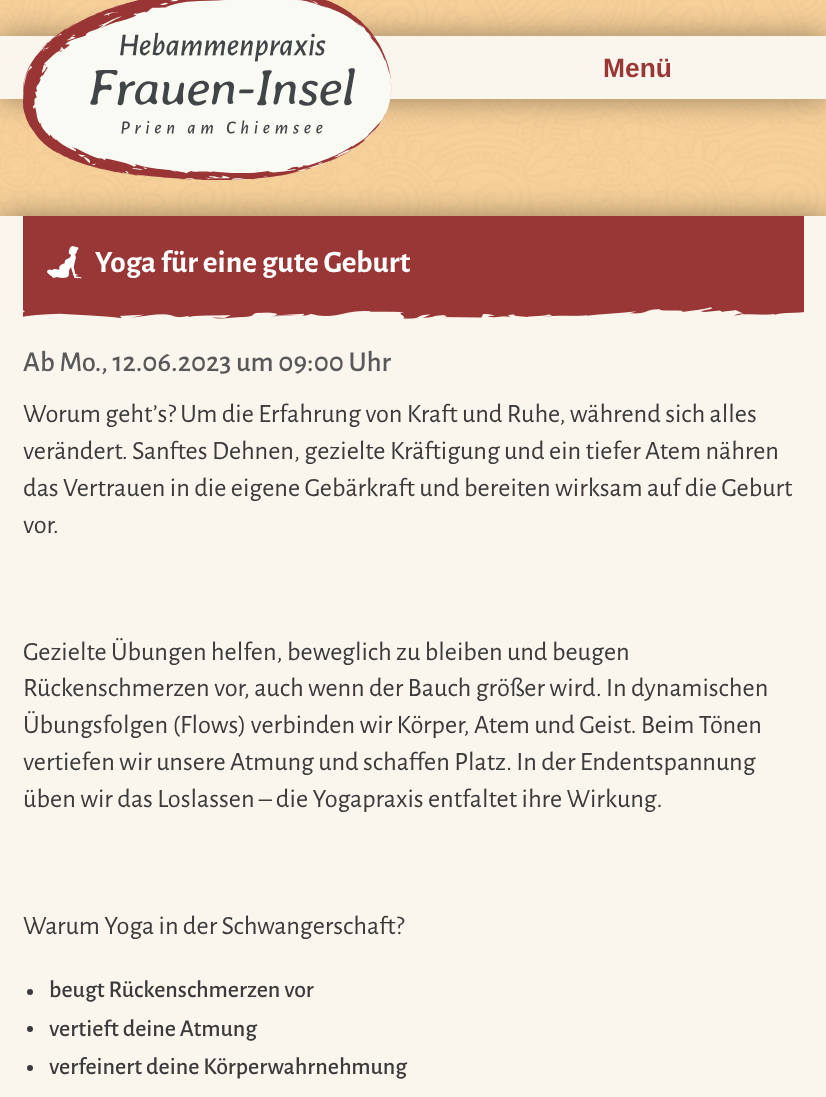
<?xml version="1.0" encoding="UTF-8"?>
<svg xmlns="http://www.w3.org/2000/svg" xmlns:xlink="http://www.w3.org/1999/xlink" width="826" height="1097">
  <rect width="100%" height="100%" fill="#ffffff" />
  <image x="0" y="0" width="826" height="216" xlink:href="image1.png" />
  <rect y="36" width="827" height="63" fill="#806b4f" fill-opacity="0.8" filter="blur(15px)" />
  <rect y="36" width="826" height="63" fill="#faf5ed" />
  <rect y="216" width="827" height="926" fill="#806b4f" fill-opacity="0.8" filter="blur(15px)" />
  <image x="23" y="0" width="369" height="180" xlink:href="image2.png" />
  <rect y="216" width="826" height="881" fill="#faf5ed" />
  <rect x="23" y="216" width="781" height="81" fill="#993636" />
  <image x="47" y="246" width="35" height="33" xlink:href="image3.png" />
  <image x="23" y="297" width="781" height="22" xlink:href="image4.png" />
  <circle cx="30" cy="992" r="3" fill="#3b3b3b" />
  <circle cx="30" cy="1029" r="3" fill="#3b3b3b" />
  <circle cx="30" cy="1068" r="3" fill="#3b3b3b" />
  <text x="603" y="77" style="font-family: Liberation Sans; font-size: 26.4px; font-weight: bold; fill: #993636">Menü</text>
  <text x="95" y="272" style="font-family: Alegreya Sans; font-size: 31.25px; font-weight: bold; fill: #ffffff">Yoga für eine gute Geburt</text>
  <text x="23" y="371" style="font-family: Alegreya Sans; font-size: 28.75px; font-weight: 500; fill: #595959">Ab Mo., 12.06.2023 um 09:00 Uhr</text>
  <text x="23" y="422" style="font-family: Alegreya Sans; font-size: 26.4px; fill: #3b3b3b">Worum geht’s? Um die Erfahrung von Kraft und Ruhe, während sich alles</text>
  <text x="23" y="459" style="font-family: Alegreya Sans; font-size: 26.4px; fill: #3b3b3b">verändert. Sanftes Dehnen, gezielte Kräftigung und ein tiefer Atem nähren</text>
  <text x="23" y="496" style="font-family: Alegreya Sans; font-size: 26.4px; fill: #3b3b3b">das Vertrauen in die eigene Gebärkraft und bereiten wirksam auf die Geburt</text>
  <text x="23" y="533" style="font-family: Alegreya Sans; font-size: 26.4px; fill: #3b3b3b">vor.</text>
  <text x="23" y="660" style="font-family: Alegreya Sans; font-size: 26.4px; fill: #3b3b3b">Gezielte Übungen helfen, beweglich zu bleiben und beugen</text>
  <text x="23" y="696" style="font-family: Alegreya Sans; font-size: 26.4px; fill: #3b3b3b">Rückenschmerzen vor, auch wenn der Bauch größer wird. In dynamischen</text>
  <text x="23" y="733" style="font-family: Alegreya Sans; font-size: 26.4px; fill: #3b3b3b">Übungsfolgen (Flows) verbinden wir Körper, Atem und Geist. Beim Tönen</text>
  <text x="23" y="770" style="font-family: Alegreya Sans; font-size: 26.4px; fill: #3b3b3b">vertiefen wir unsere Atmung und schaffen Platz. In der Endentspannung</text>
  <text x="23" y="807" style="font-family: Alegreya Sans; font-size: 26.4px; fill: #3b3b3b">üben wir das Loslassen – die Yogapraxis entfaltet ihre Wirkung.</text>
  <text x="23" y="934" style="font-family: Alegreya Sans; font-size: 26.4px; fill: #3b3b3b">Warum Yoga in der Schwangerschaft?</text>
  <text x="49" y="997" style="font-family: Alegreya Sans; font-size: 24px; font-weight: 500; fill: #3b3b3b">beugt Rückenschmerzen vor</text>
  <text x="49" y="1036" style="font-family: Alegreya Sans; font-size: 24px; font-weight: 500; fill: #3b3b3b">vertieft deine Atmung</text>
  <text x="49" y="1074" style="font-family: Alegreya Sans; font-size: 24px; font-weight: 500; fill: #3b3b3b">verfeinert deine Körperwahrnehmung</text>
</svg>
